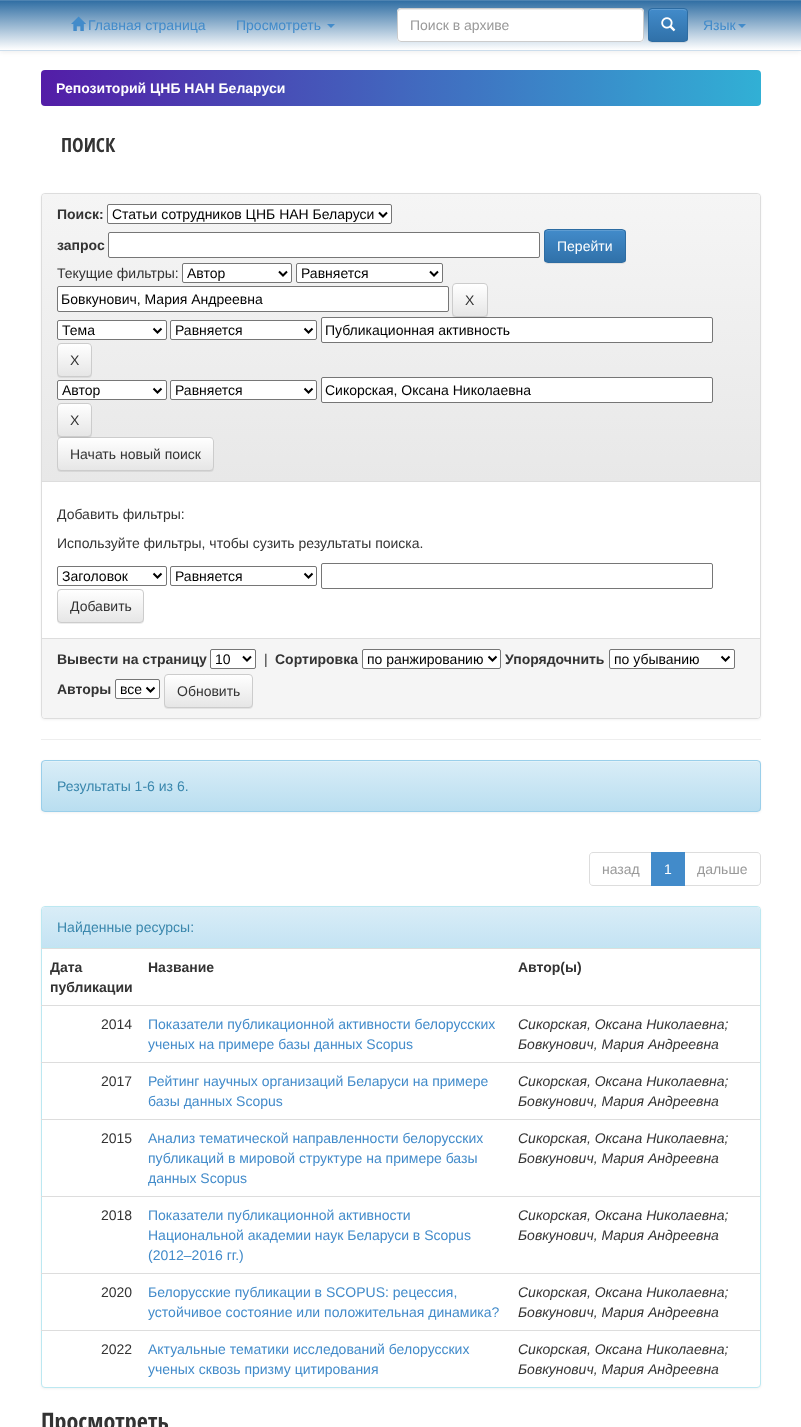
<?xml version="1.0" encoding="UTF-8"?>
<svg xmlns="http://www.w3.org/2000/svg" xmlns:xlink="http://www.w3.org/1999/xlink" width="801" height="1427">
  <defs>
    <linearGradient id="g1" gradientUnits="userSpaceOnUse" x1="401" y1="0" x2="401" y2="50"><stop offset="0" stop-color="#2d6ca2" /><stop offset="1" stop-color="#ffffff" /></linearGradient>
    <clipPath id="clip1"><rect x="648" y="8" width="40" height="34" rx="4" /></clipPath>
    <linearGradient id="g2" gradientUnits="userSpaceOnUse" x1="668" y1="9" x2="668" y2="41"><stop offset="0" stop-color="#428bca" /><stop offset="1" stop-color="#3071a9" /></linearGradient>
    <linearGradient id="g3" gradientUnits="userSpaceOnUse" x1="41" y1="88" x2="761" y2="88"><stop offset="0" stop-color="#531da7" /><stop offset="1" stop-color="#31b0d5" /></linearGradient>
    <linearGradient id="g4" gradientUnits="userSpaceOnUse" x1="401" y1="194" x2="401" y2="481"><stop offset="0" stop-color="#f5f5f5" /><stop offset="1" stop-color="#e8e8e8" /></linearGradient>
    <clipPath id="clip2"><rect x="544" y="229" width="82" height="34" rx="4" /></clipPath>
    <linearGradient id="g5" gradientUnits="userSpaceOnUse" x1="585" y1="230" x2="585" y2="262"><stop offset="0" stop-color="#428bca" /><stop offset="1" stop-color="#3071a9" /></linearGradient>
    <clipPath id="clip3"><rect x="452" y="283" width="36" height="34" rx="4" /></clipPath>
    <linearGradient id="g6" gradientUnits="userSpaceOnUse" x1="470" y1="284" x2="470" y2="316"><stop offset="0" stop-color="#ffffff" /><stop offset="1" stop-color="#e6e6e6" /></linearGradient>
    <clipPath id="clip4"><rect x="57" y="343" width="35" height="34" rx="4" /></clipPath>
    <linearGradient id="g7" gradientUnits="userSpaceOnUse" x1="75" y1="344" x2="75" y2="376"><stop offset="0" stop-color="#ffffff" /><stop offset="1" stop-color="#e6e6e6" /></linearGradient>
    <clipPath id="clip5"><rect x="57" y="437" width="157" height="34" rx="4" /></clipPath>
    <linearGradient id="g8" gradientUnits="userSpaceOnUse" x1="136" y1="438" x2="136" y2="470"><stop offset="0" stop-color="#ffffff" /><stop offset="1" stop-color="#e6e6e6" /></linearGradient>
    <clipPath id="clip6"><rect x="57" y="403" width="35" height="34" rx="4" /></clipPath>
    <linearGradient id="g9" gradientUnits="userSpaceOnUse" x1="75" y1="404" x2="75" y2="436"><stop offset="0" stop-color="#ffffff" /><stop offset="1" stop-color="#e6e6e6" /></linearGradient>
    <clipPath id="clip7"><rect x="57" y="589" width="87" height="34" rx="4" /></clipPath>
    <linearGradient id="g10" gradientUnits="userSpaceOnUse" x1="101" y1="590" x2="101" y2="622"><stop offset="0" stop-color="#ffffff" /><stop offset="1" stop-color="#e6e6e6" /></linearGradient>
    <clipPath id="clip8"><rect x="164" y="674" width="89" height="34" rx="4" /></clipPath>
    <linearGradient id="g11" gradientUnits="userSpaceOnUse" x1="209" y1="675" x2="209" y2="707"><stop offset="0" stop-color="#ffffff" /><stop offset="1" stop-color="#e6e6e6" /></linearGradient>
    <clipPath id="clip9"><rect x="41" y="760" width="720" height="52" rx="4" /></clipPath>
    <linearGradient id="g12" gradientUnits="userSpaceOnUse" x1="401" y1="761" x2="401" y2="811"><stop offset="0" stop-color="#d9edf7" /><stop offset="1" stop-color="#b9def0" /></linearGradient>
    <linearGradient id="g13" gradientUnits="userSpaceOnUse" x1="401" y1="907" x2="401" y2="947"><stop offset="0" stop-color="#d9edf7" /><stop offset="1" stop-color="#c4e3f3" /></linearGradient>
  </defs>
  <rect width="100%" height="100%" fill="#ffffff" />
  <rect y="1" width="801" height="51" fill="#000000" fill-opacity="0.07" filter="blur(2.5px)" />
  <rect y="1" width="801" height="49" fill="url(#g1)" />
  <rect width="801" height="1" fill="#4e83b1" />
  <rect y="50" width="801" height="1" fill="#ccddec" />
  <image x="71" y="16" width="15" height="15" xlink:href="image1.png" />
  <path d="M 327 24 h 8 l -4 4 z" fill="#428bca" />
  <rect x="397" y="8" width="247" height="34" rx="4" fill="#ffffff" />
  <path d="M 401 10 h 240 l 2 1 v 2 c 0 -2 -1 -4 -3 -4 h -239 c -2 0 -3 2 -3 4 c 0 -2 1 -3 3 -3 z" fill="#ececec" />
  <rect x="397.5" y="8.5" width="246" height="33" rx="3.5" fill="none" stroke="#cccccc" />
  <rect x="648" y="9" width="40" height="34" rx="4" fill="#000000" fill-opacity="0.07" filter="blur(0.5px)" />
  <g clip-path="url(#clip1)">
    <rect x="648" y="9" width="40" height="32" fill="url(#g2)" />
  </g>
  <path d="M 652 10 h 27 c 5.5 0 7.5 0.5 8 2.5 c 0 -5 -4.5 -3.5 -8.5 -3.5 h -21 c -3.5 0 -8.5 -1 -8.5 3.5 c 0.5 -1.5 1.5 -2.5 3 -2.5 z" fill="#5e9cd1" />
  <rect x="648.5" y="8.5" width="39" height="33" rx="3.5" fill="none" stroke="#2d6ca2" />
  <image x="661" y="17" width="15" height="15" xlink:href="image2.png" />
  <path d="M 738 24 h 8 l -4 4 z" fill="#428bca" />
  <rect x="41" y="70" width="720" height="36" rx="4" fill="url(#g3)" />
  <rect x="41" y="194" width="720" height="526" rx="4" fill="#000000" fill-opacity="0.05" filter="blur(1px)" />
  <rect x="41.5" y="193.5" width="719" height="525" rx="3.5" fill="#ffffff" stroke="#dddddd" />
  <path d="M 45 194 h 712 c 1.5 0 3 1.5 3 3 v 284 h -718 v -284 c 0 -1.5 1.5 -3 3 -3 z" fill="url(#g4)" />
  <rect x="42" y="481" width="718" height="1" fill="#dddddd" />
  <rect x="107.5" y="204.5" width="284" height="19" rx="1.5" fill="#ffffff" stroke="#767676" />
  <path d="M 379 212.5 l 4 4 l 4 -4" fill="none" stroke="#000000" stroke-width="2" />
  <rect x="108.5" y="232.5" width="431" height="25" rx="1.5" fill="#ffffff" stroke="#767676" />
  <rect x="544" y="230" width="82" height="34" rx="4" fill="#000000" fill-opacity="0.07" filter="blur(0.5px)" />
  <g clip-path="url(#clip2)">
    <rect x="544" y="230" width="82" height="32" fill="url(#g5)" />
  </g>
  <path d="M 548 231 h 74 c 2 0 3 1 3 3 c 0 -7 -11 -4 -15 -4 h -50 c -4 0 -15 -3 -15 4 c 0 -2 1 -3 3 -3 z" fill="#5e9cd1" />
  <rect x="544.5" y="229.5" width="81" height="33" rx="3.5" fill="none" stroke="#2d6ca2" />
  <rect x="182.5" y="263.5" width="109" height="19" rx="1.5" fill="#ffffff" stroke="#767676" />
  <path d="M 279 271.5 l 4 4 l 4 -4" fill="none" stroke="#000000" stroke-width="2" />
  <rect x="296.5" y="263.5" width="146" height="19" rx="1.5" fill="#ffffff" stroke="#767676" />
  <path d="M 430 271.5 l 4 4 l 4 -4" fill="none" stroke="#000000" stroke-width="2" />
  <rect x="57.5" y="286.5" width="391" height="25" rx="1.5" fill="#ffffff" stroke="#767676" />
  <rect x="321.5" y="317.5" width="391" height="25" rx="1.5" fill="#ffffff" stroke="#767676" />
  <rect x="452" y="284" width="36" height="34" rx="4" fill="#000000" fill-opacity="0.07" filter="blur(0.5px)" />
  <g clip-path="url(#clip3)">
    <rect x="452" y="284" width="36" height="32" fill="url(#g6)" />
  </g>
  <rect x="452.5" y="283.5" width="35" height="33" rx="3.5" fill="none" stroke="#cccccc" />
  <rect x="57.5" y="320.5" width="109" height="19" rx="1.5" fill="#ffffff" stroke="#767676" />
  <path d="M 153.5 328.5 l 4 4 l 4 -4" fill="none" stroke="#000000" stroke-width="2" />
  <rect x="170.5" y="320.5" width="146" height="19" rx="1.5" fill="#ffffff" stroke="#767676" />
  <path d="M 304.5 328.5 l 4 4 l 4 -4" fill="none" stroke="#000000" stroke-width="2" />
  <rect x="57.5" y="380.5" width="109" height="19" rx="1.5" fill="#ffffff" stroke="#767676" />
  <rect x="57" y="344" width="35" height="34" rx="4" fill="#000000" fill-opacity="0.07" filter="blur(0.5px)" />
  <g clip-path="url(#clip4)">
    <rect x="57" y="344" width="35" height="32" fill="url(#g7)" />
  </g>
  <rect x="57.5" y="343.5" width="34" height="33" rx="3.5" fill="none" stroke="#cccccc" />
  <path d="M 153.5 388.5 l 4 4 l 4 -4" fill="none" stroke="#000000" stroke-width="2" />
  <rect x="170.5" y="380.5" width="146" height="19" rx="1.5" fill="#ffffff" stroke="#767676" />
  <path d="M 304.5 388.5 l 4 4 l 4 -4" fill="none" stroke="#000000" stroke-width="2" />
  <rect x="321.5" y="377.5" width="391" height="25" rx="1.5" fill="#ffffff" stroke="#767676" />
  <rect x="57" y="438" width="157" height="34" rx="4" fill="#000000" fill-opacity="0.07" filter="blur(0.5px)" />
  <g clip-path="url(#clip5)">
    <rect x="57" y="438" width="157" height="32" fill="url(#g8)" />
  </g>
  <path d="M 61 439 h 149 c 2 0 3 1 3 3 c 0 -2 0 -3 -2 -4 h -125 c -8 0 -28 -5 -28 4 c 0 -2 1 -3 3 -3 z" fill="#ffffff" />
  <rect x="57.5" y="437.5" width="156" height="33" rx="3.5" fill="none" stroke="#cccccc" />
  <rect x="57" y="404" width="35" height="34" rx="4" fill="#000000" fill-opacity="0.07" filter="blur(0.5px)" />
  <g clip-path="url(#clip6)">
    <rect x="57" y="404" width="35" height="32" fill="url(#g9)" />
  </g>
  <rect x="57.5" y="403.5" width="34" height="33" rx="3.5" fill="none" stroke="#cccccc" />
  <rect x="57.5" y="566.5" width="109" height="19" rx="1.5" fill="none" stroke="#767676" />
  <path d="M 153.5 573.5 l 4 4 l 4 -4" fill="none" stroke="#000000" stroke-width="2" />
  <rect x="170.5" y="566.5" width="146" height="19" rx="1.5" fill="none" stroke="#767676" />
  <path d="M 304.5 573.5 l 4 4 l 4 -4" fill="none" stroke="#000000" stroke-width="2" />
  <rect x="321.5" y="563.5" width="391" height="25" rx="1.5" fill="none" stroke="#767676" />
  <rect x="57" y="590" width="87" height="34" rx="4" fill="#000000" fill-opacity="0.07" filter="blur(0.5px)" />
  <g clip-path="url(#clip7)">
    <rect x="57" y="590" width="87" height="32" fill="url(#g10)" />
  </g>
  <rect x="57.5" y="589.5" width="86" height="33" rx="3.5" fill="none" stroke="#cccccc" />
  <path d="M 42 638 h 718 v 77 c 0 1.5 -1.5 3 -3 3 h -712 c -1.5 0 -3 -1.5 -3 -3 z" fill="#f5f5f5" />
  <rect x="42" y="638" width="718" height="1" fill="#dddddd" />
  <rect x="210.5" y="649.5" width="45" height="19" rx="1.5" fill="#ffffff" stroke="#767676" />
  <path d="M 243 656.5 l 4 4 l 4 -4" fill="none" stroke="#000000" stroke-width="2" />
  <rect x="362.5" y="649.5" width="138" height="19" rx="1.5" fill="#ffffff" stroke="#767676" />
  <path d="M 488.5 656.5 l 4 4 l 4 -4" fill="none" stroke="#000000" stroke-width="2" />
  <rect x="609.5" y="649.5" width="125" height="19" rx="1.5" fill="#ffffff" stroke="#767676" />
  <path d="M 721.5 656.5 l 4 4 l 4 -4" fill="none" stroke="#000000" stroke-width="2" />
  <rect x="115.5" y="679.5" width="44" height="19" rx="1.5" fill="#ffffff" stroke="#767676" />
  <path d="M 146.5 687.5 l 4 4 l 4 -4" fill="none" stroke="#000000" stroke-width="2" />
  <rect x="164" y="675" width="89" height="34" rx="4" fill="#000000" fill-opacity="0.07" filter="blur(0.5px)" />
  <g clip-path="url(#clip8)">
    <rect x="164" y="675" width="89" height="32" fill="url(#g11)" />
  </g>
  <rect x="164.5" y="674.5" width="88" height="33" rx="3.5" fill="none" stroke="#cccccc" />
  <rect x="41" y="739" width="720" height="1" fill="#eeeeee" />
  <rect x="41" y="761" width="720" height="52" rx="4" fill="#000000" fill-opacity="0.05" filter="blur(1px)" />
  <g clip-path="url(#clip9)">
    <rect x="41" y="761" width="720" height="50" fill="url(#g12)" />
  </g>
  <path d="M 45 762 h 712 c 2 0 3 1 3 3 c 0 -2 -1 -4 -3 -4 h -712 c -2 0 -3 2 -3 4 c 0 -2 1 -3 3 -3 z" fill="#e3f2f9" />
  <rect x="41.5" y="760.5" width="719" height="51" rx="3.5" fill="none" stroke="#9acfea" />
  <path d="M 593 852.5 h 58.5 v 33 h -58.5 c -2 0 -3.5 -1.5 -3.5 -3.5 v -26 c 0 -2 1.5 -3.5 3.5 -3.5 z" fill="none" stroke="#dddddd" />
  <path d="M 684.5 852.5 h 72.5 c 2 0 3.5 1.5 3.5 3.5 v 26 c 0 2 -1.5 3.5 -3.5 3.5 h -72.5 z" fill="none" stroke="#dddddd" />
  <rect x="651" y="852" width="34" height="34" fill="#428bca" />
  <rect x="41" y="907" width="720" height="482" rx="4" fill="#000000" fill-opacity="0.05" filter="blur(1px)" />
  <rect x="41.5" y="906.5" width="719" height="481" rx="3.5" fill="#ffffff" stroke="#bce8f1" />
  <path d="M 45 907 h 712 c 1.5 0 3 1.5 3 3 v 37 h -718 v -37 c 0 -1.5 1.5 -3 3 -3 z" fill="url(#g13)" />
  <rect x="42" y="947" width="718" height="1" fill="#bce8f1" />
  <rect x="41" y="948" width="719" height="1" fill="#dddddd" />
  <rect x="41" y="1005" width="719" height="1" fill="#dddddd" />
  <rect x="41" y="1062" width="719" height="1" fill="#dddddd" />
  <rect x="41" y="1119" width="719" height="1" fill="#dddddd" />
  <rect x="41" y="1196" width="719" height="1" fill="#dddddd" />
  <rect x="41" y="1273" width="719" height="1" fill="#dddddd" />
  <rect x="41" y="1330" width="719" height="1" fill="#dddddd" />
  <text x="88" y="30" style="font-family: Liberation Sans; font-size: 14px; fill: #428bca">Главная страница</text>
  <text x="236" y="30" style="font-family: Liberation Sans; font-size: 14px; fill: #428bca">Просмотреть</text>
  <text x="410" y="30" style="font-family: Liberation Sans; font-size: 14px; fill: #999999">Поиск в архиве</text>
  <text x="703" y="30" style="font-family: Liberation Sans; font-size: 14px; fill: #428bca">Язык</text>
  <text x="56" y="93" style="font-family: Liberation Sans; font-size: 14px; font-weight: bold; fill: #ffffff">Репозиторий ЦНБ НАН Беларуси</text>
  <text x="61" y="152" style="font-family: Open Sans Condensed; font-size: 19.5px; font-weight: bold; fill: #333333">ПОИСК</text>
  <text x="57" y="219" style="font-family: Liberation Sans; font-size: 14px; font-weight: bold; fill: #333333">Поиск:</text>
  <text x="112" y="219" style="font-family: Liberation Sans; font-size: 14px; fill: #000000">Статьи сотрудников ЦНБ НАН Беларуси</text>
  <text x="57" y="250" style="font-family: Liberation Sans; font-size: 14px; font-weight: bold; fill: #333333">запрос</text>
  <text x="557" y="251" style="font-family: Liberation Sans; font-size: 14px; fill: #ffffff">Перейти</text>
  <text x="57" y="278" style="font-family: Liberation Sans; font-size: 14px; fill: #333333">Текущие фильтры:</text>
  <text x="187" y="278" style="font-family: Liberation Sans; font-size: 14px; fill: #000000">Автор</text>
  <text x="301" y="278" style="font-family: Liberation Sans; font-size: 14px; fill: #000000">Равняется</text>
  <text x="61" y="304" style="font-family: Liberation Sans; font-size: 14px; fill: #000000">Бовкунович, Мария Андреевна</text>
  <text x="465" y="305" style="font-family: Liberation Sans; font-size: 14px; fill: #333333">X</text>
  <text x="62" y="335" style="font-family: Liberation Sans; font-size: 14px; fill: #000000">Тема</text>
  <text x="175" y="335" style="font-family: Liberation Sans; font-size: 14px; fill: #000000">Равняется</text>
  <text x="325" y="335" style="font-family: Liberation Sans; font-size: 14px; fill: #000000">Публикационная активность</text>
  <text x="70" y="365" style="font-family: Liberation Sans; font-size: 14px; fill: #333333">X</text>
  <text x="62" y="395" style="font-family: Liberation Sans; font-size: 14px; fill: #000000">Автор</text>
  <text x="175" y="395" style="font-family: Liberation Sans; font-size: 14px; fill: #000000">Равняется</text>
  <text x="325" y="395" style="font-family: Liberation Sans; font-size: 14px; fill: #000000">Сикорская, Оксана Николаевна</text>
  <text x="70" y="425" style="font-family: Liberation Sans; font-size: 14px; fill: #333333">X</text>
  <text x="70" y="459" style="font-family: Liberation Sans; font-size: 14px; fill: #333333">Начать новый поиск</text>
  <text x="57" y="519" style="font-family: Liberation Sans; font-size: 14px; fill: #333333">Добавить фильтры:</text>
  <text x="57" y="548" style="font-family: Liberation Sans; font-size: 14px; fill: #333333">Используйте фильтры, чтобы сузить результаты поиска.</text>
  <text x="62" y="581" style="font-family: Liberation Sans; font-size: 14px; fill: #000000">Заголовок</text>
  <text x="175" y="581" style="font-family: Liberation Sans; font-size: 14px; fill: #000000">Равняется</text>
  <text x="70" y="611" style="font-family: Liberation Sans; font-size: 14px; fill: #333333">Добавить</text>
  <text x="57" y="664" style="font-family: Liberation Sans; font-size: 14px; font-weight: bold; fill: #333333">Вывести на страницу</text>
  <text x="215" y="664" style="font-family: Liberation Sans; font-size: 14px; fill: #000000">10</text>
  <text x="264" y="664" style="font-family: Liberation Sans; font-size: 14px; fill: #333333">|</text>
  <text x="275" y="664" style="font-family: Liberation Sans; font-size: 14px; font-weight: bold; fill: #333333">Сортировка</text>
  <text x="367" y="664" style="font-family: Liberation Sans; font-size: 14px; fill: #000000">по ранжированию</text>
  <text x="505" y="664" style="font-family: Liberation Sans; font-size: 14px; font-weight: bold; fill: #333333">Упорядочнить</text>
  <text x="614" y="664" style="font-family: Liberation Sans; font-size: 14px; fill: #000000">по убыванию</text>
  <text x="57" y="694" style="font-family: Liberation Sans; font-size: 14px; font-weight: bold; fill: #333333">Авторы</text>
  <text x="120" y="694" style="font-family: Liberation Sans; font-size: 14px; fill: #000000">все</text>
  <text x="177" y="696" style="font-family: Liberation Sans; font-size: 14px; fill: #333333">Обновить</text>
  <text x="57" y="791" style="font-family: Liberation Sans; font-size: 14px; fill: #3a87ad">Результаты 1-6 из 6.</text>
  <text x="602" y="874" style="font-family: Liberation Sans; font-size: 14px; fill: #999999">назад</text>
  <text x="664" y="874" style="font-family: Liberation Sans; font-size: 14px; fill: #ffffff">1</text>
  <text x="697" y="874" style="font-family: Liberation Sans; font-size: 14px; fill: #999999">дальше</text>
  <text x="57" y="932" style="font-family: Liberation Sans; font-size: 14px; fill: #3a87ad">Найденные ресурсы:</text>
  <text x="50" y="972" style="font-family: Liberation Sans; font-size: 14px; font-weight: bold; fill: #333333">Дата</text>
  <text x="50" y="992" style="font-family: Liberation Sans; font-size: 14px; font-weight: bold; fill: #333333">публикации</text>
  <text x="148" y="972" style="font-family: Liberation Sans; font-size: 14px; font-weight: bold; fill: #333333">Название</text>
  <text x="518" y="972" style="font-family: Liberation Sans; font-size: 14px; font-weight: bold; fill: #333333">Автор(ы)</text>
  <text x="101" y="1029" style="font-family: Liberation Sans; font-size: 14px; fill: #333333">2014</text>
  <text x="148" y="1029" style="font-family: Liberation Sans; font-size: 14px; fill: #428bca">Показатели публикационной активности белорусских</text>
  <text x="148" y="1049" style="font-family: Liberation Sans; font-size: 14px; fill: #428bca">ученых на примере базы данных Scopus</text>
  <text x="518" y="1029" style="font-family: Liberation Sans; font-size: 14px; font-style: italic; fill: #333333">Сикорская, Оксана Николаевна;</text>
  <text x="518" y="1049" style="font-family: Liberation Sans; font-size: 14px; font-style: italic; fill: #333333">Бовкунович, Мария Андреевна</text>
  <text x="101" y="1086" style="font-family: Liberation Sans; font-size: 14px; fill: #333333">2017</text>
  <text x="148" y="1086" style="font-family: Liberation Sans; font-size: 14px; fill: #428bca">Рейтинг научных организаций Беларуси на примере</text>
  <text x="148" y="1106" style="font-family: Liberation Sans; font-size: 14px; fill: #428bca">базы данных Scopus</text>
  <text x="518" y="1086" style="font-family: Liberation Sans; font-size: 14px; font-style: italic; fill: #333333">Сикорская, Оксана Николаевна;</text>
  <text x="518" y="1106" style="font-family: Liberation Sans; font-size: 14px; font-style: italic; fill: #333333">Бовкунович, Мария Андреевна</text>
  <text x="101" y="1143" style="font-family: Liberation Sans; font-size: 14px; fill: #333333">2015</text>
  <text x="148" y="1143" style="font-family: Liberation Sans; font-size: 14px; fill: #428bca">Анализ тематической направленности белорусских</text>
  <text x="148" y="1163" style="font-family: Liberation Sans; font-size: 14px; fill: #428bca">публикаций в мировой структуре на примере базы</text>
  <text x="148" y="1183" style="font-family: Liberation Sans; font-size: 14px; fill: #428bca">данных Scopus</text>
  <text x="518" y="1143" style="font-family: Liberation Sans; font-size: 14px; font-style: italic; fill: #333333">Сикорская, Оксана Николаевна;</text>
  <text x="518" y="1163" style="font-family: Liberation Sans; font-size: 14px; font-style: italic; fill: #333333">Бовкунович, Мария Андреевна</text>
  <text x="101" y="1220" style="font-family: Liberation Sans; font-size: 14px; fill: #333333">2018</text>
  <text x="148" y="1220" style="font-family: Liberation Sans; font-size: 14px; fill: #428bca">Показатели публикационной активности</text>
  <text x="148" y="1240" style="font-family: Liberation Sans; font-size: 14px; fill: #428bca">Национальной академии наук Беларуси в Scopus</text>
  <text x="148" y="1260" style="font-family: Liberation Sans; font-size: 14px; fill: #428bca">(2012–2016 гг.)</text>
  <text x="518" y="1220" style="font-family: Liberation Sans; font-size: 14px; font-style: italic; fill: #333333">Сикорская, Оксана Николаевна;</text>
  <text x="518" y="1240" style="font-family: Liberation Sans; font-size: 14px; font-style: italic; fill: #333333">Бовкунович, Мария Андреевна</text>
  <text x="101" y="1297" style="font-family: Liberation Sans; font-size: 14px; fill: #333333">2020</text>
  <text x="148" y="1297" style="font-family: Liberation Sans; font-size: 14px; fill: #428bca">Белорусские публикации в SCOPUS: рецессия,</text>
  <text x="148" y="1317" style="font-family: Liberation Sans; font-size: 14px; fill: #428bca">устойчивое состояние или положительная динамика?</text>
  <text x="518" y="1297" style="font-family: Liberation Sans; font-size: 14px; font-style: italic; fill: #333333">Сикорская, Оксана Николаевна;</text>
  <text x="518" y="1317" style="font-family: Liberation Sans; font-size: 14px; font-style: italic; fill: #333333">Бовкунович, Мария Андреевна</text>
  <text x="101" y="1354" style="font-family: Liberation Sans; font-size: 14px; fill: #333333">2022</text>
  <text x="148" y="1354" style="font-family: Liberation Sans; font-size: 14px; fill: #428bca">Актуальные тематики исследований белорусских</text>
  <text x="148" y="1374" style="font-family: Liberation Sans; font-size: 14px; fill: #428bca">ученых сквозь призму цитирования</text>
  <text x="518" y="1354" style="font-family: Liberation Sans; font-size: 14px; font-style: italic; fill: #333333">Сикорская, Оксана Николаевна;</text>
  <text x="518" y="1374" style="font-family: Liberation Sans; font-size: 14px; font-style: italic; fill: #333333">Бовкунович, Мария Андреевна</text>
  <text x="41" y="1430" style="font-family: Open Sans Condensed; font-size: 24px; font-weight: bold; fill: #333333">Просмотреть</text>
</svg>
